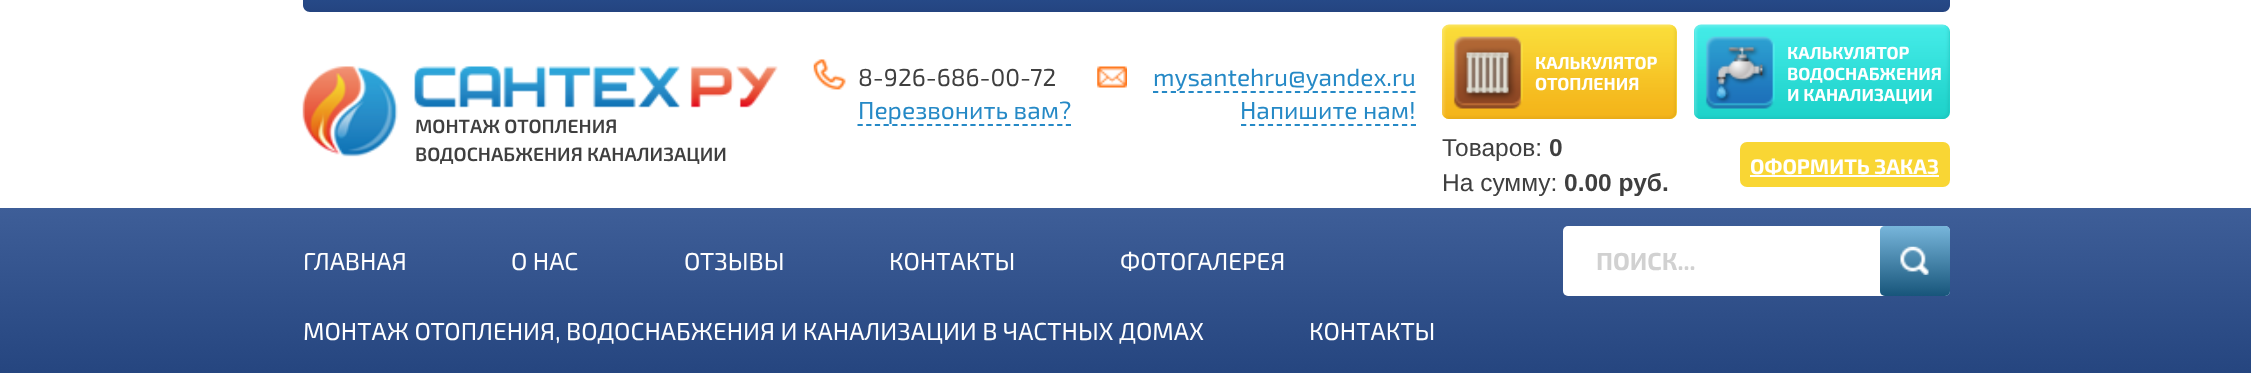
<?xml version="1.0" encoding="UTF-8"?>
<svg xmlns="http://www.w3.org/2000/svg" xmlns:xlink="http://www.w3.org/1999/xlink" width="2251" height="373">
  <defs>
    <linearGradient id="g1" gradientUnits="userSpaceOnUse" x1="1126" y1="0" x2="1126" y2="12"><stop offset="0" stop-color="#264987" /><stop offset="1" stop-color="#244480" /></linearGradient>
    <linearGradient id="g2" gradientUnits="userSpaceOnUse" x1="1126" y1="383" x2="1126" y2="208"><stop offset="0" stop-color="#24447e" /><stop offset="1" stop-color="#3e5e98" /></linearGradient>
    <linearGradient id="g3" gradientUnits="userSpaceOnUse" x1="1915" y1="296" x2="1915" y2="226"><stop offset="0" stop-color="#000000" stop-opacity="0.38" /><stop offset="1" stop-color="#ffffff" stop-opacity="0.38" /></linearGradient>
  </defs>
  <rect width="100%" height="100%" fill="#ffffff" />
  <path d="M 303 0 h 1647 v 5 c 0 4 -3 7 -7 7 h -1633 c -4 0 -7 -3 -7 -7 z" fill="url(#g1)" />
  <image x="813" y="59" width="33" height="31" xlink:href="image1.png" />
  <path d="M 857.5 125 h 213.5" fill="none" stroke="#2589c6" stroke-width="1.8" stroke-dasharray="5.25 3.43" />
  <image x="1097" y="66" width="30" height="22" xlink:href="image2.png" />
  <path d="M 1153 92 h 263" fill="none" stroke="#2589c6" stroke-width="1.8" stroke-dasharray="5.25 3.62" />
  <path d="M 1241 125 h 175" fill="none" stroke="#2589c6" stroke-width="1.8" stroke-dasharray="5.25 3.69" />
  <rect x="1442" y="25" width="235" height="94" rx="7" fill="#f9d634" />
  <image x="1442" y="24" width="235" height="95" xlink:href="image3.png" />
  <rect x="1694" y="25" width="256" height="94" rx="7" fill="#20d4cc" />
  <image x="1694" y="24" width="256" height="95" xlink:href="image4.png" />
  <rect x="1740" y="142" width="210" height="45" rx="7" fill="#f9d634" />
  <rect x="1750" y="175" width="189" height="2" fill="#ffffff" />
  <image x="302" y="66" width="476" height="91" xlink:href="image5.png" />
  <rect y="208" width="2251" height="165" fill="url(#g2)" />
  <rect x="1563" y="226" width="387" height="70" rx="5" fill="#ffffff" />
  <rect x="1880" y="226" width="70" height="70" rx="5" fill="#2589c5" />
  <rect x="1880" y="226" width="70" height="70" rx="5" fill="url(#g3)" />
  <image x="1900" y="246" width="29" height="29" xlink:href="image6.png" />
  <text x="858" y="86" style="font-family: 'Exo 2'; font-size: 24.5px; fill: #3f3f3f">8-926-686-00-72</text>
  <text x="858" y="119" style="font-family: 'Exo 2'; font-size: 24.5px; fill: #2589c6">Перезвонить вам?</text>
  <text x="1153" y="86" style="font-family: 'Exo 2'; font-size: 24.5px; fill: #2589c6">mysantehru@yandex.ru</text>
  <text x="1240" y="119" style="font-family: 'Exo 2'; font-size: 24.5px; fill: #2589c6">Напишите нам!</text>
  <text x="1535" y="69" style="font-family: 'Exo 2'; font-size: 17.5px; font-weight: bold; fill: #ffffff">КАЛЬКУЛЯТОР</text>
  <text x="1535" y="90" style="font-family: 'Exo 2'; font-size: 17.5px; font-weight: bold; fill: #ffffff">ОТОПЛЕНИЯ</text>
  <text x="1787" y="59" style="font-family: 'Exo 2'; font-size: 17.5px; font-weight: bold; fill: #ffffff">КАЛЬКУЛЯТОР</text>
  <text x="1787" y="80" style="font-family: 'Exo 2'; font-size: 17.5px; font-weight: bold; fill: #ffffff">ВОДОСНАБЖЕНИЯ</text>
  <text x="1787" y="101" style="font-family: 'Exo 2'; font-size: 17.5px; font-weight: bold; fill: #ffffff">И КАНАЛИЗАЦИИ</text>
  <text x="1442" y="156" style="font-family: Liberation Sans; font-size: 24.5px; fill: #3f3f3f">Товаров:</text>
  <text x="1549" y="156" style="font-family: Liberation Sans; font-size: 24.5px; font-weight: bold; fill: #3f3f3f">0</text>
  <text x="1442" y="191" style="font-family: Liberation Sans; font-size: 24.5px; fill: #3f3f3f">На сумму:</text>
  <text x="1564" y="191" style="font-family: Liberation Sans; font-size: 24.5px; font-weight: bold; fill: #3f3f3f">0.00 руб.</text>
  <text x="1750" y="174" style="font-family: 'Exo 2'; font-size: 21px; font-weight: bold; fill: #ffffff">ОФОРМИТЬ ЗАКАЗ</text>
  <text x="415" y="133" style="font-family: 'Exo 2'; font-size: 19.25px; font-weight: 600; fill: #3f3f3f">МОНТАЖ ОТОПЛЕНИЯ</text>
  <text x="415" y="161" style="font-family: 'Exo 2'; font-size: 19.25px; font-weight: 600; fill: #3f3f3f">ВОДОСНАБЖЕНИЯ КАНАЛИЗАЦИИ</text>
  <text x="303" y="270" style="font-family: 'Exo 2'; font-size: 24.5px; fill: #ffffff">ГЛАВНАЯ</text>
  <text x="511" y="270" style="font-family: 'Exo 2'; font-size: 24.5px; fill: #ffffff">О НАС</text>
  <text x="684" y="270" style="font-family: 'Exo 2'; font-size: 24.5px; fill: #ffffff">ОТЗЫВЫ</text>
  <text x="889" y="270" style="font-family: 'Exo 2'; font-size: 24.5px; fill: #ffffff">КОНТАКТЫ</text>
  <text x="1120" y="270" style="font-family: 'Exo 2'; font-size: 24.5px; fill: #ffffff">ФОТОГАЛЕРЕЯ</text>
  <text x="303" y="340" style="font-family: 'Exo 2'; font-size: 24.5px; fill: #ffffff">МОНТАЖ ОТОПЛЕНИЯ, ВОДОСНАБЖЕНИЯ И КАНАЛИЗАЦИИ В ЧАСТНЫХ ДОМАХ</text>
  <text x="1309" y="340" style="font-family: 'Exo 2'; font-size: 24.5px; fill: #ffffff">КОНТАКТЫ</text>
  <text x="1596" y="270" style="font-family: 'Exo 2'; font-size: 24.5px; font-weight: bold; fill: #d1d1d1">ПОИСК...</text>
</svg>
